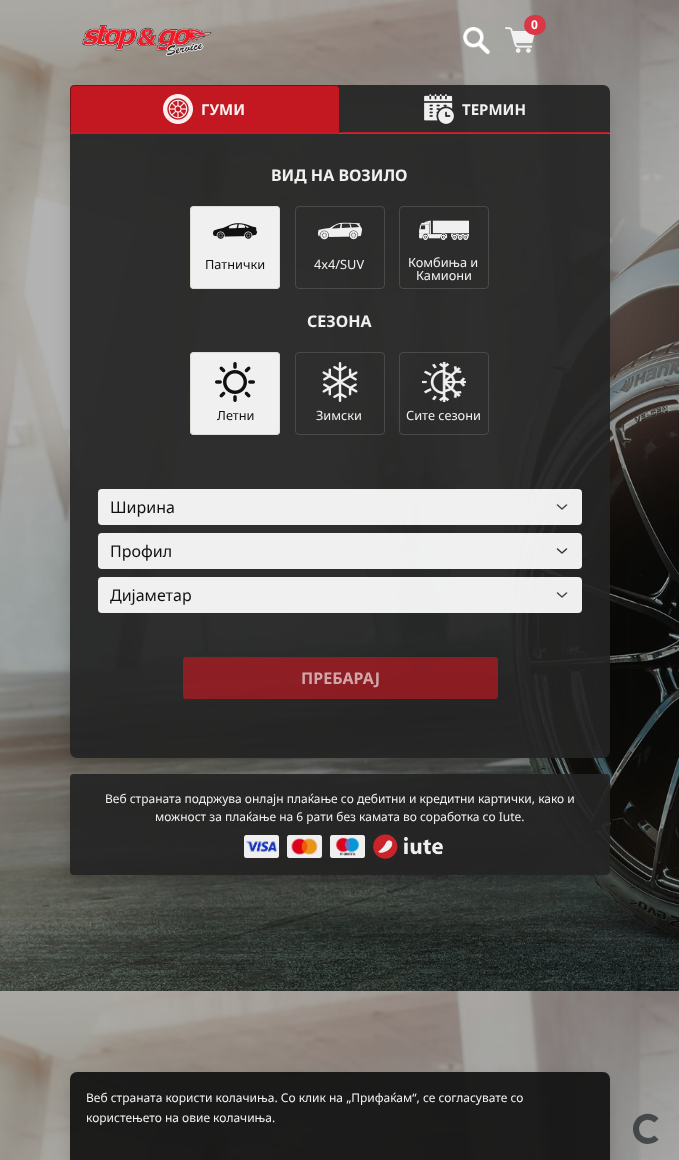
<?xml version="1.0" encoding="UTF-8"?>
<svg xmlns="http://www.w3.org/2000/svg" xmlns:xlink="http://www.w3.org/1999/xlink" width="679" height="1160">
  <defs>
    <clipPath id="clip1"><path d="M 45 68 h 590 v 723 h -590 z m 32 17 h 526 c 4 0 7 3 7 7 v 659 c 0 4 -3 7 -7 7 h -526 c -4 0 -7 -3 -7 -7 v -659 c 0 -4 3 -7 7 -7 z" clip-rule="evenodd" /></clipPath>
    <clipPath id="clip2"><path d="M 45 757 h 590 v 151 h -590 z m 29 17 h 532 c 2 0 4 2 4 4 v 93 c 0 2 -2 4 -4 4 h -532 c -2 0 -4 -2 -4 -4 v -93 c 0 -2 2 -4 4 -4 z" clip-rule="evenodd" /></clipPath>
    <clipPath id="clip3"><path d="M 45 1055 h 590 v 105 h -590 z m 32 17 h 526 c 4 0 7 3 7 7 v 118 c 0 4 -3 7 -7 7 h -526 c -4 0 -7 -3 -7 -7 v -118 c 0 -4 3 -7 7 -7 z" clip-rule="evenodd" /></clipPath>
    <clipPath id="clip4"><rect x="110" y="583" width="436" height="24" /></clipPath>
  </defs>
  <rect width="100%" height="100%" fill="#ffffff" />
  <image x="0" y="0" width="679" height="1160" xlink:href="image1.png" />
  <image x="82" y="25" width="130" height="31" xlink:href="image2.png" />
  <image x="505" y="27" width="30" height="26" xlink:href="image3.png" />
  <rect x="524" y="15" width="22" height="20" rx="10" fill="#dc3545" />
  <image x="463" y="27" width="27" height="27" xlink:href="image4.png" />
  <g clip-path="url(#clip1)">
    <rect x="70" y="93" width="540" height="673" rx="7" fill="#000000" fill-opacity="0.14" filter="blur(8px)" />
  </g>
  <rect x="70" y="85" width="540" height="673" rx="7" fill="#242424" fill-opacity="0.93" />
  <rect x="70" y="133" width="540" height="1" fill="#dee2e6" fill-opacity="0.93" />
  <path d="M 74 85 h 262 c 2 0 4 2 4 4 v 45 h -270 v -45 c 0 -2 2 -4 4 -4 z" fill="#cf1721" fill-opacity="0.93" />
  <path d="M 74 85 l -3 1 l 1 1 l 2 -1 h 262 l 2 1 l 1 -1 l -3 -1 z" fill="#000000" fill-opacity="0.38" />
  <path d="M 340 134 v -45 c 0 -1 0 -2 -1 -3 l -1 1 l 1 2 v 43 z" fill="#000000" fill-opacity="0.38" />
  <path d="M 340 134 l -1 -2 h -268 l -1 2 z" fill="#c61b25" fill-opacity="0.93" />
  <path d="M 70 134 l 1 -2 v -43 l 1 -2 l -1 -1 l -1 3 z" fill="#000000" fill-opacity="0.38" />
  <image x="163" y="94" width="30" height="30" xlink:href="image5.png" />
  <path d="M 610 134 l -1 -2 h -268 l -1 2 z" fill="#c61b25" fill-opacity="0.93" />
  <image x="424" y="94" width="30" height="30" xlink:href="image6.png" />
  <rect x="190" y="206" width="90" height="83" rx="4" fill="#ffffff" fill-opacity="0.93" />
  <rect x="190.5" y="206.5" width="89" height="82" rx="3.5" fill="none" stroke="#dedad6" stroke-opacity="0.93" />
  <image x="213" y="223" width="44" height="16" xlink:href="image7.png" />
  <rect x="295.5" y="206.5" width="89" height="82" rx="3.5" fill="none" stroke="#4a4a4a" />
  <image x="318" y="222" width="44" height="18" xlink:href="image8.png" />
  <rect x="399.5" y="206.5" width="89" height="82" rx="3.5" fill="none" stroke="#4c4c4c" stroke-opacity="0.93" />
  <image x="419" y="220" width="50" height="20" xlink:href="image9.png" />
  <rect x="190" y="352" width="90" height="83" rx="4" fill="#f0f0f0" />
  <rect x="190.5" y="352.5" width="89" height="82" rx="3.5" fill="none" stroke="#dedad6" stroke-opacity="0.93" />
  <image x="215" y="362" width="40" height="40" xlink:href="image10.png" />
  <rect x="295.5" y="352.5" width="89" height="82" rx="3.5" fill="none" stroke="#4c4c4c" stroke-opacity="0.93" />
  <image x="322" y="362" width="36" height="40" xlink:href="image11.png" />
  <rect x="399.5" y="352.5" width="89" height="82" rx="3.5" fill="none" stroke="#4c4c4c" stroke-opacity="0.93" />
  <image x="422" y="362" width="44" height="40" xlink:href="image12.png" />
  <rect x="98" y="489" width="484" height="36" rx="4" fill="#ffffff" fill-opacity="0.93" />
  <path d="M 557.5 505 l 4.5 4 l 4.5 -4" fill="none" stroke="#41474c" stroke-width="1.5" stroke-linecap="round" stroke-linejoin="round" />
  <rect x="98" y="533" width="484" height="36" rx="4" fill="#ffffff" fill-opacity="0.93" />
  <path d="M 557.5 549 l 4.5 4 l 4.5 -4" fill="none" stroke="#32373d" stroke-width="1.5" stroke-linecap="round" stroke-linejoin="round" />
  <rect x="98" y="577" width="484" height="36" rx="4" fill="#ffffff" fill-opacity="0.93" />
  <path d="M 557.5 593 l 4.5 4 l 4.5 -4" fill="none" stroke="#41474c" stroke-width="1.5" stroke-linecap="round" stroke-linejoin="round" />
  <rect x="183" y="657" width="315" height="42" rx="3" fill="#cf1721" fill-opacity="0.6" />
  <g clip-path="url(#clip2)">
    <rect x="70" y="782" width="540" height="101" rx="4" fill="#000000" fill-opacity="0.14" filter="blur(8px)" />
  </g>
  <rect x="70" y="774" width="540" height="101" rx="4" fill="#242424" fill-opacity="0.93" />
  <image x="244" y="835" width="35" height="23" xlink:href="image13.png" />
  <image x="287" y="835" width="35" height="23" xlink:href="image14.png" />
  <image x="330" y="835" width="35" height="23" xlink:href="image15.png" />
  <image x="373" y="834" width="70" height="25" xlink:href="image16.png" />
  <path d="M 656.5 1137.5 c -2 2 -5.5 3.5 -8.5 3.5 c -14.5 0 -16.5 -21 -2.5 -24 c 4 -0.5 8 0.5 11 3.5" fill="none" stroke="#212529" stroke-opacity="0.7" stroke-width="6" />
  <g clip-path="url(#clip3)">
    <rect x="70" y="1080" width="540" height="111" rx="7" fill="#000000" fill-opacity="0.14" filter="blur(8px)" />
  </g>
  <rect x="70" y="1072" width="540" height="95" rx="7" fill="#111111" fill-opacity="0.93" />
  <text x="531" y="29" style="font-family: Noto Sans; font-size: 12px; font-weight: bold; fill: #ffffff">0</text>
  <text x="201" y="115" style="font-family: Noto Sans; font-size: 15px; font-weight: bold; fill: #fbeff0">ГУМИ</text>
  <text x="462" y="115" style="font-family: Noto Sans; font-size: 15px; font-weight: bold; fill: #f0f0f0">ТЕРМИН</text>
  <text x="271" y="181" style="font-family: Noto Sans; font-size: 16px; font-weight: bold; fill: #f0f0f0">ВИД НА ВОЗИЛО</text>
  <text x="205" y="269" style="font-family: Noto Sans; font-size: 12.75px; fill: #111111">Патнички</text>
  <text x="314" y="269" style="font-family: Noto Sans; font-size: 12.75px; fill: #f0f0f0">4x4/SUV</text>
  <text x="408" y="267" style="font-family: Noto Sans; font-size: 12.75px; fill: #f0f0f0">Комбиња и</text>
  <text x="416" y="280" style="font-family: Noto Sans; font-size: 12.75px; fill: #f0f0f0">Камиони</text>
  <text x="307" y="327" style="font-family: Noto Sans; font-size: 16px; font-weight: bold; fill: #f0f0f0">СЕЗОНА</text>
  <text x="217" y="420" style="font-family: Noto Sans; font-size: 12.75px; fill: #111111">Летни</text>
  <text x="316" y="420" style="font-family: Noto Sans; font-size: 12.75px; fill: #f0f0f0">Зимски</text>
  <text x="406" y="420" style="font-family: Noto Sans; font-size: 12.75px; fill: #f0f0f0">Сите сезони</text>
  <text x="110" y="513" style="font-family: Noto Sans; font-size: 16px; fill: #111111">Ширина</text>
  <text x="110" y="557" style="font-family: Noto Sans; font-size: 16px; fill: #111111">Профил</text>
  <g clip-path="url(#clip4)">
    <text x="110" y="601" style="font-family: Noto Sans; font-size: 16px; fill: #111111">Дијаметар</text>
  </g>
  <text x="301" y="684" style="font-family: Noto Sans; font-size: 16px; font-weight: bold; fill: #d2a6a8">ПРЕБАРАЈ</text>
  <text x="105" y="803" style="font-family: Noto Sans; font-size: 12px; fill: #f0f0f0">Веб страната подржува онлајн плаќање со дебитни и кредитни картички, како и</text>
  <text x="155" y="821" style="font-family: Noto Sans; font-size: 12px; fill: #f0f0f0">можност за плаќање на 6 рати без камата во соработка со Iute.</text>
  <text x="86" y="1102" style="font-family: Noto Sans; font-size: 12px; fill: #f0f0f0">Веб страната користи колачиња. Со клик на „Прифаќам“, се согласувате со</text>
  <text x="86" y="1122" style="font-family: Noto Sans; font-size: 12px; fill: #f0f0f0">користењето на овие колачиња.</text>
</svg>
